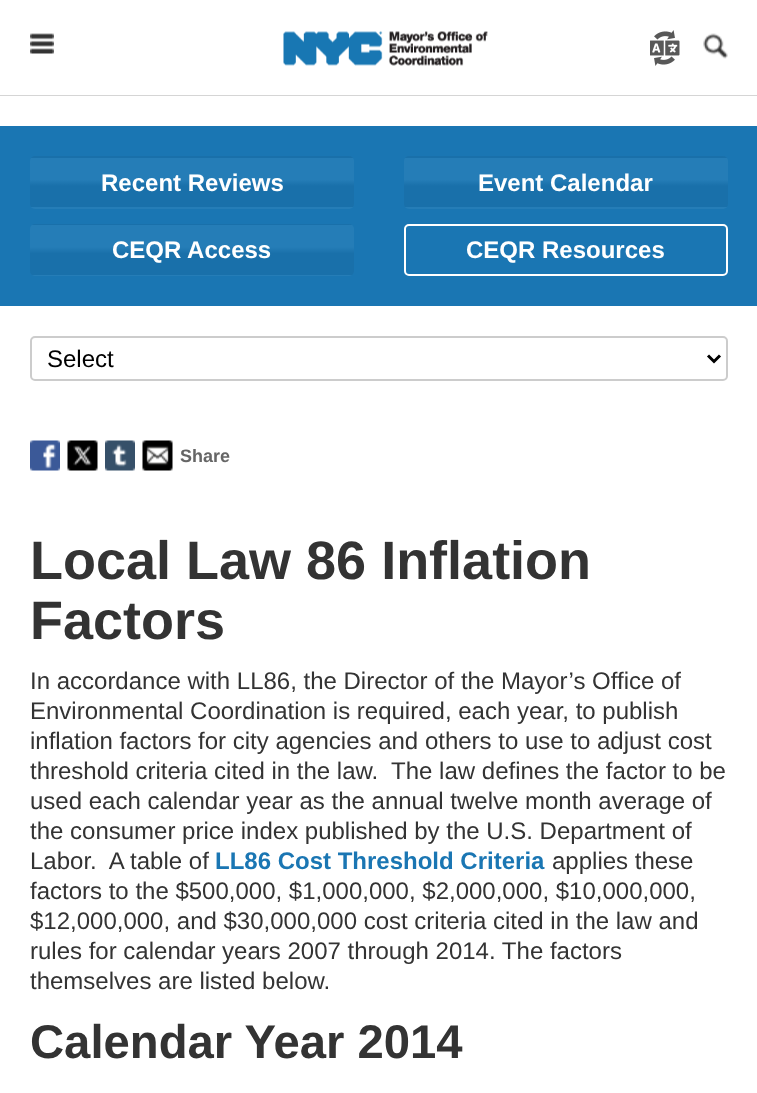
<?xml version="1.0" encoding="UTF-8"?>
<svg xmlns="http://www.w3.org/2000/svg" xmlns:xlink="http://www.w3.org/1999/xlink" width="757" height="1093">
  <defs>
    <clipPath id="clip1"><rect x="30" y="156" width="324" height="53" rx="5" /></clipPath>
    <linearGradient id="g1" gradientUnits="userSpaceOnUse" x1="192" y1="158" x2="192" y2="108"><stop offset="0" stop-color="#1970aa" /><stop offset="0.43" stop-color="#1970aa" /><stop offset="0.56" stop-color="#257db7" /><stop offset="1" stop-color="#257db7" /></linearGradient>
    <linearGradient id="g2" gradientUnits="userSpaceOnUse" x1="192" y1="207" x2="192" y2="158"><stop offset="0" stop-color="#1970aa" /><stop offset="0.43" stop-color="#1970aa" /><stop offset="0.56" stop-color="#257db7" /><stop offset="1" stop-color="#257db7" /></linearGradient>
    <linearGradient id="g3" gradientUnits="userSpaceOnUse" x1="192" y1="257" x2="192" y2="207"><stop offset="0" stop-color="#1970aa" /><stop offset="0.43" stop-color="#1970aa" /><stop offset="0.56" stop-color="#257db7" /><stop offset="1" stop-color="#257db7" /></linearGradient>
    <clipPath id="clip2"><rect x="404" y="156" width="324" height="53" rx="5" /></clipPath>
    <linearGradient id="g4" gradientUnits="userSpaceOnUse" x1="566" y1="158" x2="566" y2="108"><stop offset="0" stop-color="#1970aa" /><stop offset="0.43" stop-color="#1970aa" /><stop offset="0.56" stop-color="#257db7" /><stop offset="1" stop-color="#257db7" /></linearGradient>
    <linearGradient id="g5" gradientUnits="userSpaceOnUse" x1="566" y1="207" x2="566" y2="158"><stop offset="0" stop-color="#1970aa" /><stop offset="0.43" stop-color="#1970aa" /><stop offset="0.56" stop-color="#257db7" /><stop offset="1" stop-color="#257db7" /></linearGradient>
    <linearGradient id="g6" gradientUnits="userSpaceOnUse" x1="566" y1="257" x2="566" y2="207"><stop offset="0" stop-color="#1970aa" /><stop offset="0.43" stop-color="#1970aa" /><stop offset="0.56" stop-color="#257db7" /><stop offset="1" stop-color="#257db7" /></linearGradient>
    <clipPath id="clip3"><rect x="30" y="224" width="324" height="52" rx="5" /></clipPath>
    <linearGradient id="g7" gradientUnits="userSpaceOnUse" x1="192" y1="225" x2="192" y2="176"><stop offset="0" stop-color="#1970aa" /><stop offset="0.43" stop-color="#1970aa" /><stop offset="0.56" stop-color="#257db7" /><stop offset="1" stop-color="#257db7" /></linearGradient>
    <linearGradient id="g8" gradientUnits="userSpaceOnUse" x1="192" y1="275" x2="192" y2="225"><stop offset="0" stop-color="#1970aa" /><stop offset="0.43" stop-color="#1970aa" /><stop offset="0.56" stop-color="#257db7" /><stop offset="1" stop-color="#257db7" /></linearGradient>
    <linearGradient id="g9" gradientUnits="userSpaceOnUse" x1="192" y1="324" x2="192" y2="275"><stop offset="0" stop-color="#1970aa" /><stop offset="0.43" stop-color="#1970aa" /><stop offset="0.56" stop-color="#257db7" /><stop offset="1" stop-color="#257db7" /></linearGradient>
  </defs>
  <rect width="100%" height="100%" fill="#ffffff" />
  <rect y="95" width="757" height="1" fill="#d5d5d5" />
  <image x="30" y="33" width="24" height="21" xlink:href="image1.png" />
  <image x="283" y="31" width="205" height="35" xlink:href="image2.png" />
  <image x="650" y="30" width="30" height="36" xlink:href="image3.png" />
  <image x="703" y="33" width="25" height="26" xlink:href="image4.png" />
  <rect y="126" width="757" height="180" fill="#1a76b3" />
  <g clip-path="url(#clip1)">
    <rect x="30" y="156" width="324" height="2" fill="url(#g1)" />
    <rect x="30" y="158" width="324" height="49" fill="url(#g2)" />
    <rect x="30" y="207" width="324" height="2" fill="url(#g3)" />
  </g>
  <g clip-path="url(#clip2)">
    <rect x="404" y="156" width="324" height="2" fill="url(#g4)" />
    <rect x="404" y="158" width="324" height="49" fill="url(#g5)" />
    <rect x="404" y="207" width="324" height="2" fill="url(#g6)" />
  </g>
  <g clip-path="url(#clip3)">
    <rect x="30" y="224" width="324" height="1" fill="url(#g7)" />
    <rect x="30" y="225" width="324" height="50" fill="url(#g8)" />
    <rect x="30" y="275" width="324" height="1" fill="url(#g9)" />
  </g>
  <rect x="405" y="225" width="322" height="50" rx="4" fill="none" stroke="#ffffff" stroke-width="2" />
  <rect x="31" y="337" width="696" height="43" rx="4" fill="none" stroke="#cccccc" stroke-width="2" />
  <path d="M 708 355.5 l 6 6 l 6 -6" fill="none" stroke="#000000" stroke-width="3" />
  <image x="30" y="440" width="30" height="31" xlink:href="image5.png" />
  <image x="67" y="440" width="31" height="31" xlink:href="image6.png" />
  <image x="105" y="440" width="30" height="31" xlink:href="image7.png" />
  <image x="142" y="440" width="31" height="31" xlink:href="image8.png" />
  <text x="101" y="191" style="font-family: Liberation Sans; font-size: 24px; font-weight: bold; fill: #ffffff">Recent Reviews</text>
  <text x="478" y="191" style="font-family: Liberation Sans; font-size: 24px; font-weight: bold; fill: #ffffff">Event Calendar</text>
  <text x="112" y="258" style="font-family: Liberation Sans; font-size: 24px; font-weight: bold; fill: #ffffff">CEQR Access</text>
  <text x="466" y="258" style="font-family: Liberation Sans; font-size: 24px; font-weight: bold; fill: #ffffff">CEQR Resources</text>
  <text x="47" y="367" style="font-family: Liberation Sans; font-size: 24px; fill: #000000">Select</text>
  <text x="180" y="462" style="font-family: Liberation Sans; font-size: 18px; font-weight: bold; fill: #666666">Share</text>
  <text x="30" y="579" style="font-family: Liberation Sans; font-size: 54px; font-weight: bold; fill: #333333">Local Law 86 Inflation</text>
  <text x="30" y="639" style="font-family: Liberation Sans; font-size: 54px; font-weight: bold; fill: #333333">Factors</text>
  <text x="30" y="689" style="font-family: Liberation Sans; font-size: 24px; fill: #333333">In accordance with LL86, the Director of the Mayor’s Office of</text>
  <text x="30" y="719" style="font-family: Liberation Sans; font-size: 24px; fill: #333333">Environmental Coordination is required, each year, to publish</text>
  <text x="30" y="749" style="font-family: Liberation Sans; font-size: 24px; fill: #333333">inflation factors for city agencies and others to use to adjust cost</text>
  <text x="30" y="779" style="font-family: Liberation Sans; font-size: 24px; fill: #333333" xml:space="preserve">threshold criteria cited in the law.  The law defines the factor to be</text>
  <text x="30" y="809" style="font-family: Liberation Sans; font-size: 24px; fill: #333333">used each calendar year as the annual twelve month average of</text>
  <text x="30" y="839" style="font-family: Liberation Sans; font-size: 24px; fill: #333333">the consumer price index published by the U.S. Department of</text>
  <text x="30" y="869" style="font-family: Liberation Sans; font-size: 24px; fill: #333333" xml:space="preserve">Labor.  A table of</text>
  <text x="215" y="869" style="font-family: Liberation Sans; font-size: 24px; font-weight: bold; fill: #1a76b3">LL86 Cost Threshold Criteria</text>
  <text x="552" y="869" style="font-family: Liberation Sans; font-size: 24px; fill: #333333">applies these</text>
  <text x="30" y="899" style="font-family: Liberation Sans; font-size: 24px; fill: #333333">factors to the $500,000, $1,000,000, $2,000,000, $10,000,000,</text>
  <text x="30" y="929" style="font-family: Liberation Sans; font-size: 24px; fill: #333333">$12,000,000, and $30,000,000 cost criteria cited in the law and</text>
  <text x="30" y="959" style="font-family: Liberation Sans; font-size: 24px; fill: #333333">rules for calendar years 2007 through 2014. The factors</text>
  <text x="30" y="989" style="font-family: Liberation Sans; font-size: 24px; fill: #333333">themselves are listed below.</text>
  <text x="30" y="1058" style="font-family: Liberation Sans; font-size: 47.25px; font-weight: bold; fill: #333333">Calendar Year 2014</text>
</svg>
